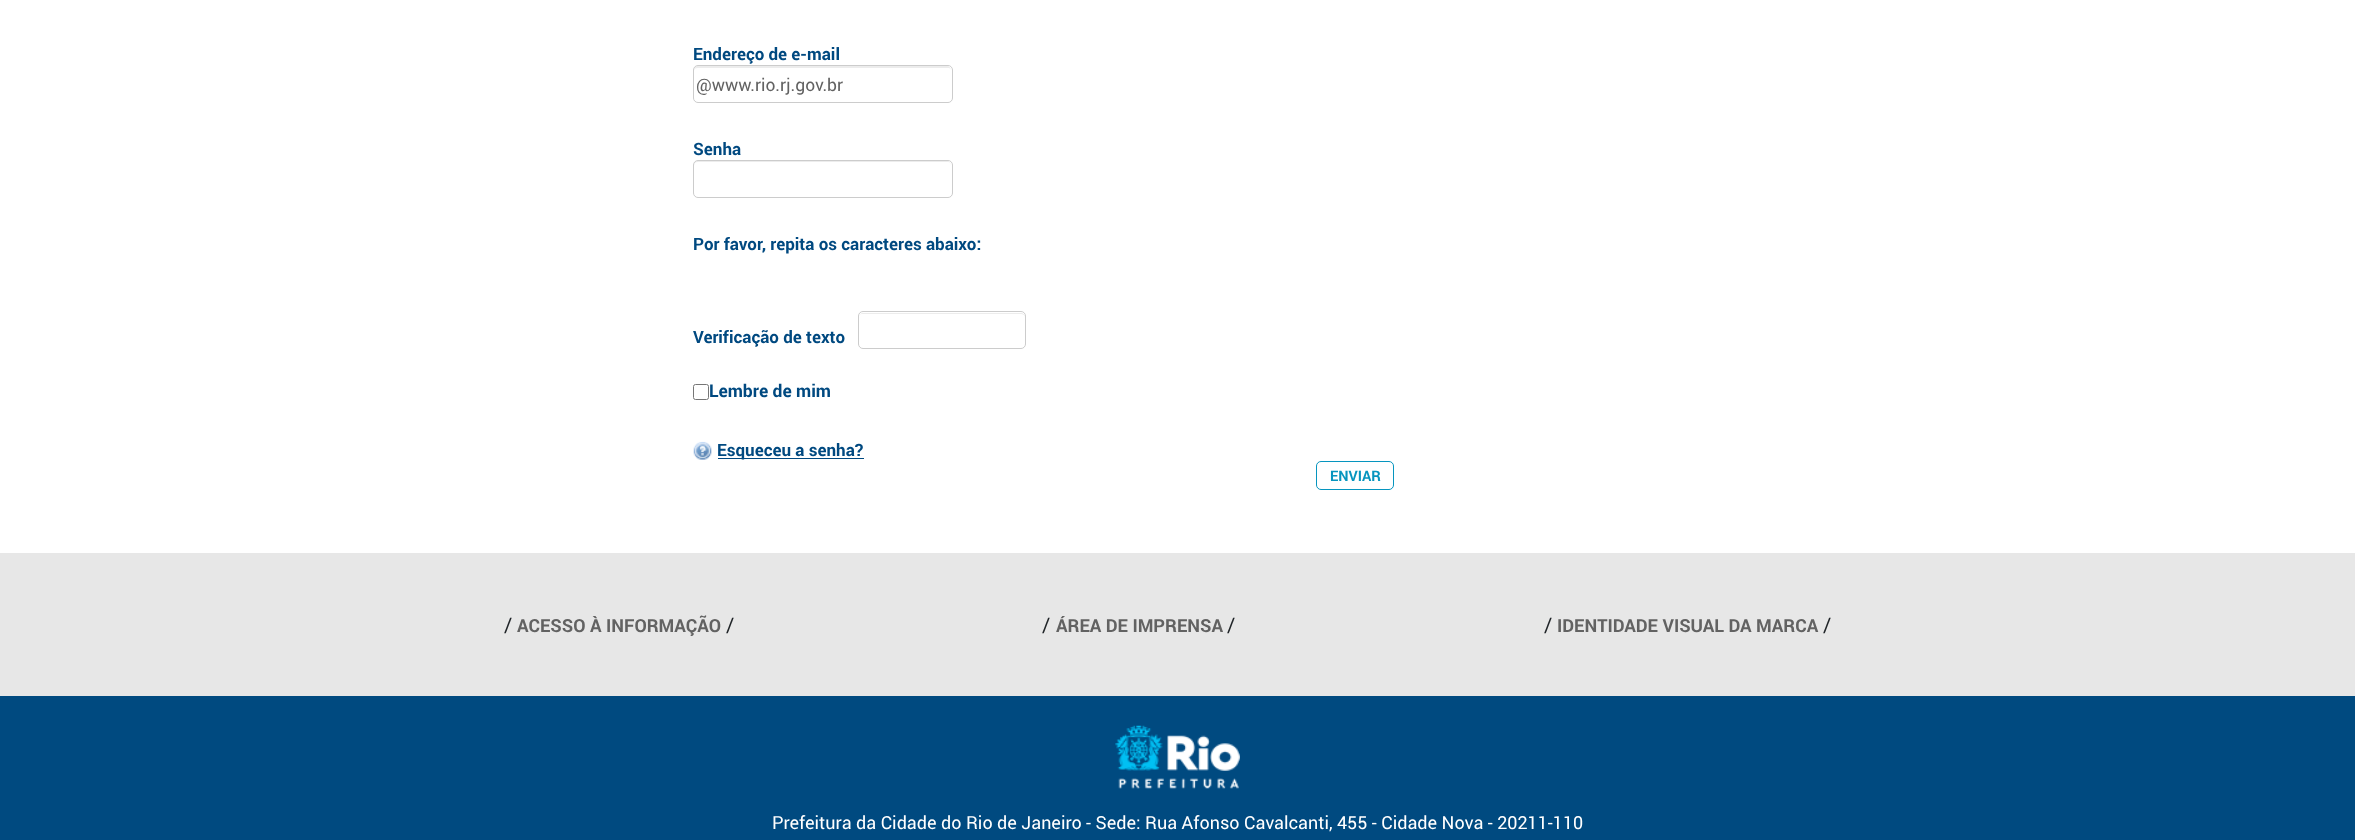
<?xml version="1.0" encoding="UTF-8"?>
<svg xmlns="http://www.w3.org/2000/svg" xmlns:xlink="http://www.w3.org/1999/xlink" width="2355" height="840">
  <rect width="100%" height="100%" fill="#ffffff" />
  <path d="M 698 68 h 251 l 2 1 v 2 v -1 c 0 -2 -2 -4 -4 -4 h -249 c -2 0 -4 2 -4 4 v 1 c 0 -2 1 -3 4 -3 z" fill="#ececec" />
  <rect x="693.5" y="65.5" width="259" height="37" rx="4.5" fill="none" stroke="#cccccc" />
  <path d="M 698 162 h 250 c 2 0 3 2 3 4 v -1 c 0 -2 -2 -4 -4 -4 h -249 c -2 0 -4 2 -4 4 v 1 c 0 -2 1 -4 4 -4 z" fill="#ececec" />
  <rect x="693.5" y="160.5" width="259" height="37" rx="4.5" fill="none" stroke="#cccccc" />
  <path d="M 862 314 h 159 c 2 0 4 1 4 4 v -1 c 0 -2 -2 -4 -4 -4 h -158 c -2 0 -4 2 -4 4 v 1 c 0 -3 1 -4 3 -4 z" fill="#ececec" />
  <rect x="858.5" y="311.5" width="167" height="37" rx="4.5" fill="none" stroke="#cccccc" />
  <rect x="693.5" y="384.5" width="15" height="15" rx="2" fill="none" stroke="#767676" />
  <image x="693" y="441" width="19" height="19" xlink:href="image1.png" />
  <rect x="718" y="458" width="146" height="1" fill="#004980" />
  <rect x="1316.5" y="461.5" width="77" height="28" rx="4.5" fill="none" stroke="#0695bf" />
  <rect y="553" width="2355" height="143" fill="#e7e7e7" />
  <rect y="696" width="2355" height="144" fill="#004a80" />
  <image x="1115" y="725" width="125" height="64" xlink:href="image2.png" />
  <text x="693" y="60" style="font-family: Roboto; font-size: 17px; font-weight: bold; fill: #004980">Endereço de e-mail</text>
  <text x="696" y="91" style="font-family: Roboto; font-size: 17.5px; fill: #626262">@www.rio.rj.gov.br</text>
  <text x="693" y="155" style="font-family: Roboto; font-size: 17px; font-weight: bold; fill: #004980">Senha</text>
  <text x="693" y="250" style="font-family: Roboto; font-size: 17px; font-weight: bold; fill: #004980">Por favor, repita os caracteres abaixo:</text>
  <text x="693" y="343" style="font-family: Roboto; font-size: 17px; font-weight: bold; fill: #004980">Verificação de texto</text>
  <text x="709" y="397" style="font-family: Roboto; font-size: 17.5px; font-weight: bold; fill: #004980">Lembre de mim</text>
  <text x="717" y="456" style="font-family: Roboto; font-size: 17px; font-weight: bold; fill: #004980">Esqueceu a senha?</text>
  <text x="1330" y="481" style="font-family: Roboto; font-size: 14.5px; font-weight: bold; fill: #0695bf">ENVIAR</text>
  <text x="504" y="632" style="font-family: Roboto; font-size: 20px; fill: #212529">/</text>
  <text x="517" y="632" style="font-family: Roboto; font-size: 18px; font-weight: bold; fill: #626262">ACESSO À INFORMAÇÃO</text>
  <text x="726" y="632" style="font-family: Roboto; font-size: 20px; fill: #212529">/</text>
  <text x="1042" y="632" style="font-family: Roboto; font-size: 20px; fill: #212529">/</text>
  <text x="1056" y="632" style="font-family: Roboto; font-size: 18px; font-weight: bold; fill: #626262">ÁREA DE IMPRENSA</text>
  <text x="1227" y="632" style="font-family: Roboto; font-size: 20px; fill: #212529">/</text>
  <text x="1544" y="632" style="font-family: Roboto; font-size: 20px; fill: #212529">/</text>
  <text x="1557" y="632" style="font-family: Roboto; font-size: 18px; font-weight: bold; fill: #626262">IDENTIDADE VISUAL DA MARCA</text>
  <text x="1823" y="632" style="font-family: Roboto; font-size: 20px; fill: #212529">/</text>
  <text x="772" y="829" style="font-family: Roboto; font-size: 18px; fill: #ffffff">Prefeitura da Cidade do Rio de Janeiro - Sede: Rua Afonso Cavalcanti, 455 - Cidade Nova - 20211-110</text>
</svg>
